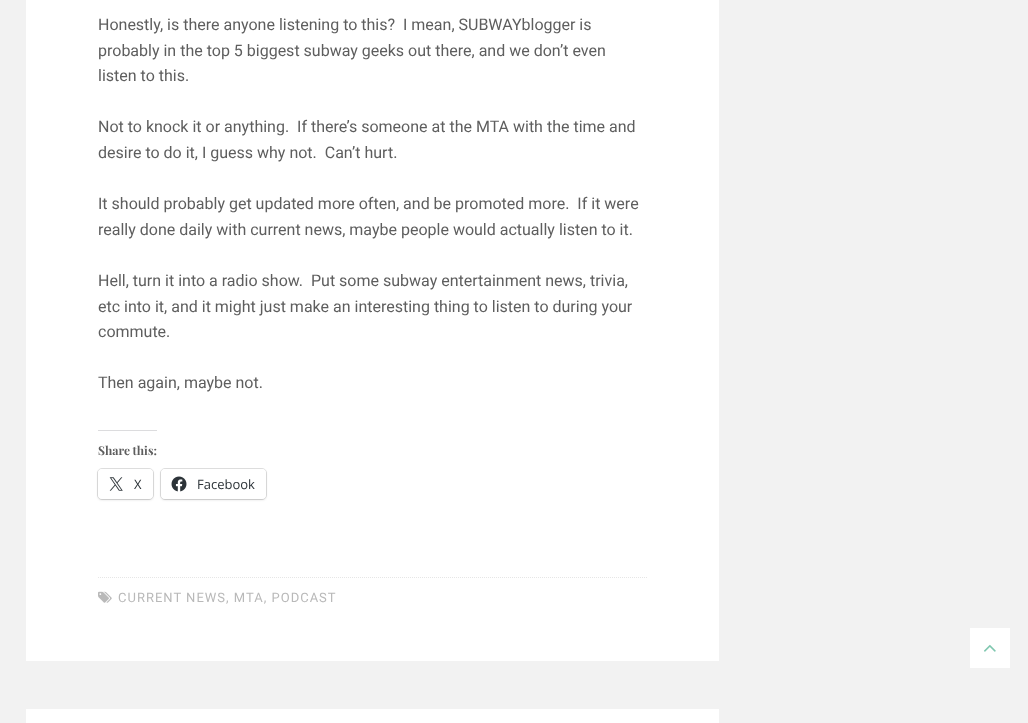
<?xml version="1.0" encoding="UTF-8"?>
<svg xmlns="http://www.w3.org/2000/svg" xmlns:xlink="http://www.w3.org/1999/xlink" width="1028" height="723">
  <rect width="100%" height="100%" fill="#f2f2f2" />
  <rect x="26" width="693" height="661" fill="#ffffff" />
  <rect x="98" y="430" width="59" height="1" fill="#dcdcde" />
  <rect x="97.5" y="468.5" width="56" height="31" rx="4.5" fill="none" stroke="#e0e0e0" />
  <rect x="98" y="470" width="55" height="30" rx="4" fill="#000000" fill-opacity="0.12" filter="blur(1px)" />
  <rect x="98" y="469" width="55" height="30" rx="4" fill="#ffffff" />
  <image x="109" y="477" width="14" height="14" xlink:href="image1.png" />
  <rect x="160.5" y="468.5" width="106" height="31" rx="4.5" fill="none" stroke="#e0e0e0" />
  <rect x="161" y="470" width="105" height="30" rx="4" fill="#000000" fill-opacity="0.12" filter="blur(1px)" />
  <rect x="161" y="469" width="105" height="30" rx="4" fill="#ffffff" />
  <image x="171" y="476" width="16" height="16" xlink:href="image2.png" />
  <path d="M 98 577.5 h 549" fill="none" stroke="#e6e6e6" stroke-dasharray="1 1" />
  <image x="98" y="591" width="14" height="12" xlink:href="image3.png" />
  <rect x="26" y="709" width="693" height="14" fill="#ffffff" />
  <rect x="970" y="628" width="40" height="40" fill="#ffffff" />
  <image x="984" y="644" width="12" height="8" xlink:href="image4.png" />
  <text x="98" y="30" style="font-family: Roboto; font-size: 16px; fill: #5e5e5e" xml:space="preserve">Honestly, is there anyone listening to this?  I mean, SUBWAYblogger is</text>
  <text x="98" y="56" style="font-family: Roboto; font-size: 16px; fill: #5e5e5e">probably in the top 5 biggest subway geeks out there, and we don’t even</text>
  <text x="98" y="81" style="font-family: Roboto; font-size: 16px; fill: #5e5e5e">listen to this.</text>
  <text x="98" y="132" style="font-family: Roboto; font-size: 16px; fill: #5e5e5e" xml:space="preserve">Not to knock it or anything.  If there’s someone at the MTA with the time and</text>
  <text x="98" y="158" style="font-family: Roboto; font-size: 16px; fill: #5e5e5e" xml:space="preserve">desire to do it, I guess why not.  Can’t hurt.</text>
  <text x="98" y="209" style="font-family: Roboto; font-size: 16px; fill: #5e5e5e" xml:space="preserve">It should probably get updated more often, and be promoted more.  If it were</text>
  <text x="98" y="235" style="font-family: Roboto; font-size: 16px; fill: #5e5e5e">really done daily with current news, maybe people would actually listen to it.</text>
  <text x="98" y="286" style="font-family: Roboto; font-size: 16px; fill: #5e5e5e" xml:space="preserve">Hell, turn it into a radio show.  Put some subway entertainment news, trivia,</text>
  <text x="98" y="312" style="font-family: Roboto; font-size: 16px; fill: #5e5e5e">etc into it, and it might just make an interesting thing to listen to during your</text>
  <text x="98" y="337" style="font-family: Roboto; font-size: 16px; fill: #5e5e5e">commute.</text>
  <text x="98" y="388" style="font-family: Roboto; font-size: 16px; fill: #5e5e5e">Then again, maybe not.</text>
  <text x="98" y="455" style="font-family: Playfair Display; font-size: 12px; font-weight: bold; fill: #5e5e5e">Share this:</text>
  <text x="134" y="489" style="font-family: Open Sans; font-size: 13px; fill: #2c3338">X</text>
  <text x="197" y="489" style="font-family: Open Sans; font-size: 13px; fill: #2c3338">Facebook</text>
  <text x="118" y="602" style="font-family: Roboto; font-size: 13px; letter-spacing: 1px; fill: #b9b9b9">CURRENT NEWS, MTA, PODCAST</text>
</svg>
